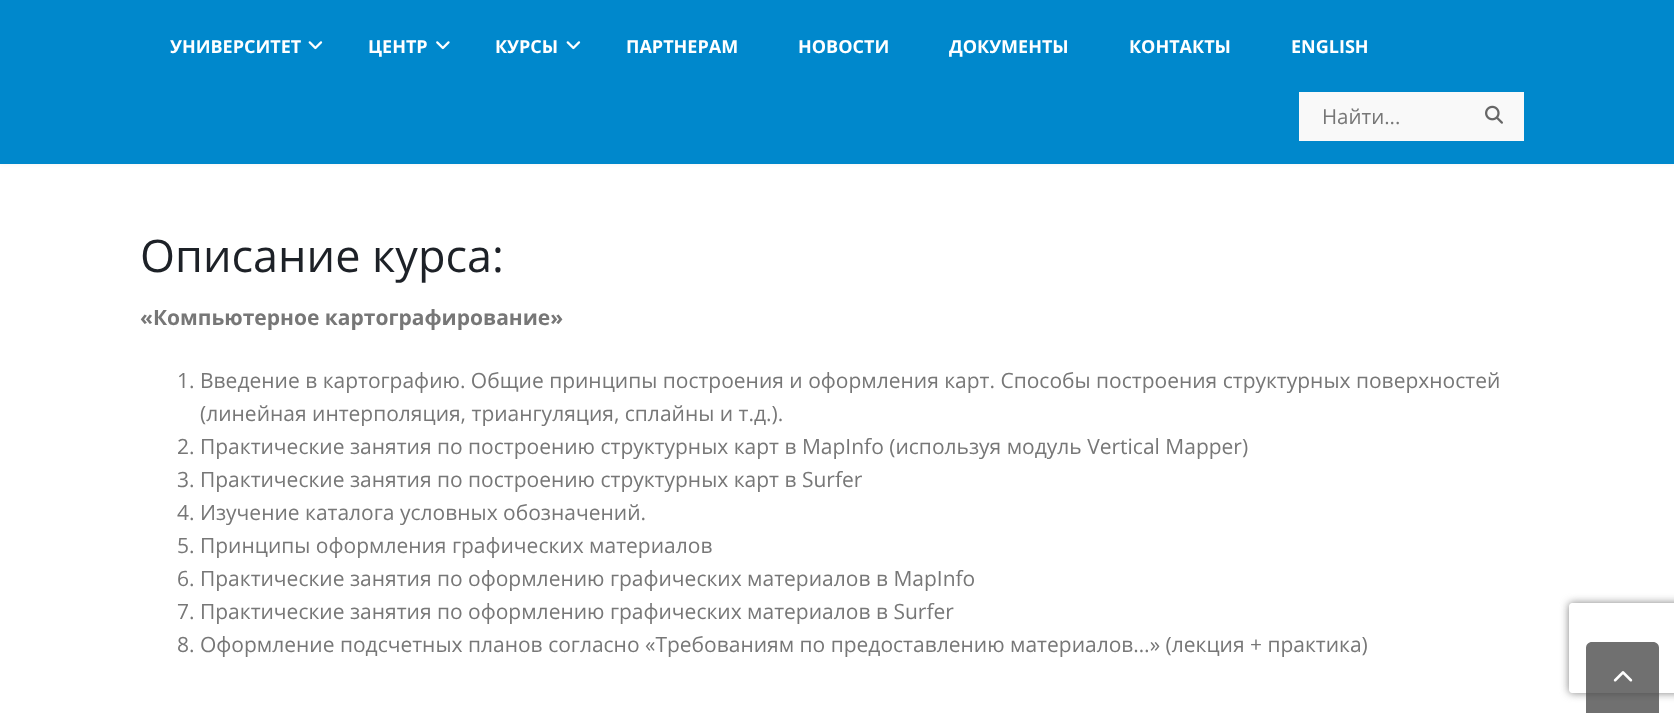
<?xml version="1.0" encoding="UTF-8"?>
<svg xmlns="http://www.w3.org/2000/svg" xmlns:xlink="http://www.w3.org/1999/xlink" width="1674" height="713">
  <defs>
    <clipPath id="clip1"><path d="M 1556 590 h 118 v 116 h -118 z m 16 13 h 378 c 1.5 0 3 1.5 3 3 v 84 c 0 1.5 -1.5 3 -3 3 h -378 c -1.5 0 -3 -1.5 -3 -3 v -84 c 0 -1.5 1.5 -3 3 -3 z" clip-rule="evenodd" /></clipPath>
  </defs>
  <rect width="100%" height="100%" fill="#ffffff" />
  <rect width="1674" height="164" fill="#000000" fill-opacity="0.06" filter="blur(2px)" />
  <rect width="1674" height="164" fill="#0088cc" />
  <image x="308" y="41" width="15" height="9" xlink:href="image1.png" />
  <image x="436" y="41" width="14" height="9" xlink:href="image2.png" />
  <image x="566" y="41" width="15" height="9" xlink:href="image1.png" />
  <rect x="1299" y="92" width="225" height="49" fill="#f9f9f9" />
  <image x="1485" y="105" width="18" height="19" xlink:href="image3.png" />
  <g clip-path="url(#clip1)">
    <rect x="1569" y="603" width="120" height="90" rx="3" fill="#808080" filter="blur(4px)" />
  </g>
  <path d="M 1592 642 h 61 c 3.5 0 6 2.5 6 6 v 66 h -73 v -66 c 0 -3.5 2.5 -6 6 -6 z" fill="#404040" fill-opacity="0.75" />
  <image x="1613" y="671" width="20" height="11" xlink:href="image4.png" />
  <text x="170" y="53" style="font-family: Open Sans; font-size: 18px; font-weight: bold; fill: #ffffff">УНИВЕРСИТЕТ</text>
  <text x="368" y="53" style="font-family: Open Sans; font-size: 18px; font-weight: bold; fill: #ffffff">ЦЕНТР</text>
  <text x="495" y="53" style="font-family: Open Sans; font-size: 18px; font-weight: bold; fill: #ffffff">КУРСЫ</text>
  <text x="626" y="53" style="font-family: Open Sans; font-size: 18px; font-weight: bold; fill: #ffffff">ПАРТНЕРАМ</text>
  <text x="798" y="53" style="font-family: Open Sans; font-size: 18px; font-weight: bold; fill: #ffffff">НОВОСТИ</text>
  <text x="949" y="53" style="font-family: Open Sans; font-size: 18px; font-weight: bold; fill: #ffffff">ДОКУМЕНТЫ</text>
  <text x="1129" y="53" style="font-family: Open Sans; font-size: 18px; font-weight: bold; fill: #ffffff">КОНТАКТЫ</text>
  <text x="1291" y="53" style="font-family: Open Sans; font-size: 18px; font-weight: bold; fill: #ffffff">ENGLISH</text>
  <text x="1322" y="124" style="font-family: Open Sans; font-size: 20.5px; fill: #777777">Найти...</text>
  <text x="140" y="272" style="font-family: Open Sans; font-size: 45px; fill: #1d2127">Описание курса:</text>
  <text x="140" y="325" style="font-family: Open Sans; font-size: 21px; font-weight: bold; fill: #777777">«Компьютерное картографирование»</text>
  <text x="177" y="388" style="font-family: Open Sans; font-size: 21px; fill: #777777">1. Введение в картографию. Общие принципы построения и оформления карт. Способы построения структурных поверхностей</text>
  <text x="200" y="421" style="font-family: Open Sans; font-size: 21px; fill: #777777">(линейная интерполяция, триангуляция, сплайны и т.д.).</text>
  <text x="177" y="454" style="font-family: Open Sans; font-size: 21px; fill: #777777">2. Практические занятия по построению структурных карт в MapInfo (используя модуль Vertical Mapper)</text>
  <text x="177" y="487" style="font-family: Open Sans; font-size: 21px; fill: #777777">3. Практические занятия по построению структурных карт в Surfer</text>
  <text x="177" y="520" style="font-family: Open Sans; font-size: 21px; fill: #777777">4. Изучение каталога условных обозначений.</text>
  <text x="177" y="553" style="font-family: Open Sans; font-size: 21px; fill: #777777">5. Принципы оформления графических материалов</text>
  <text x="177" y="586" style="font-family: Open Sans; font-size: 21px; fill: #777777">6. Практические занятия по оформлению графических материалов в MapInfo</text>
  <text x="177" y="619" style="font-family: Open Sans; font-size: 21px; fill: #777777">7. Практические занятия по оформлению графических материалов в Surfer</text>
  <text x="177" y="652" style="font-family: Open Sans; font-size: 21px; fill: #777777">8. Оформление подсчетных планов согласно «Требованиям по предоставлению материалов…» (лекция + практика)</text>
</svg>
